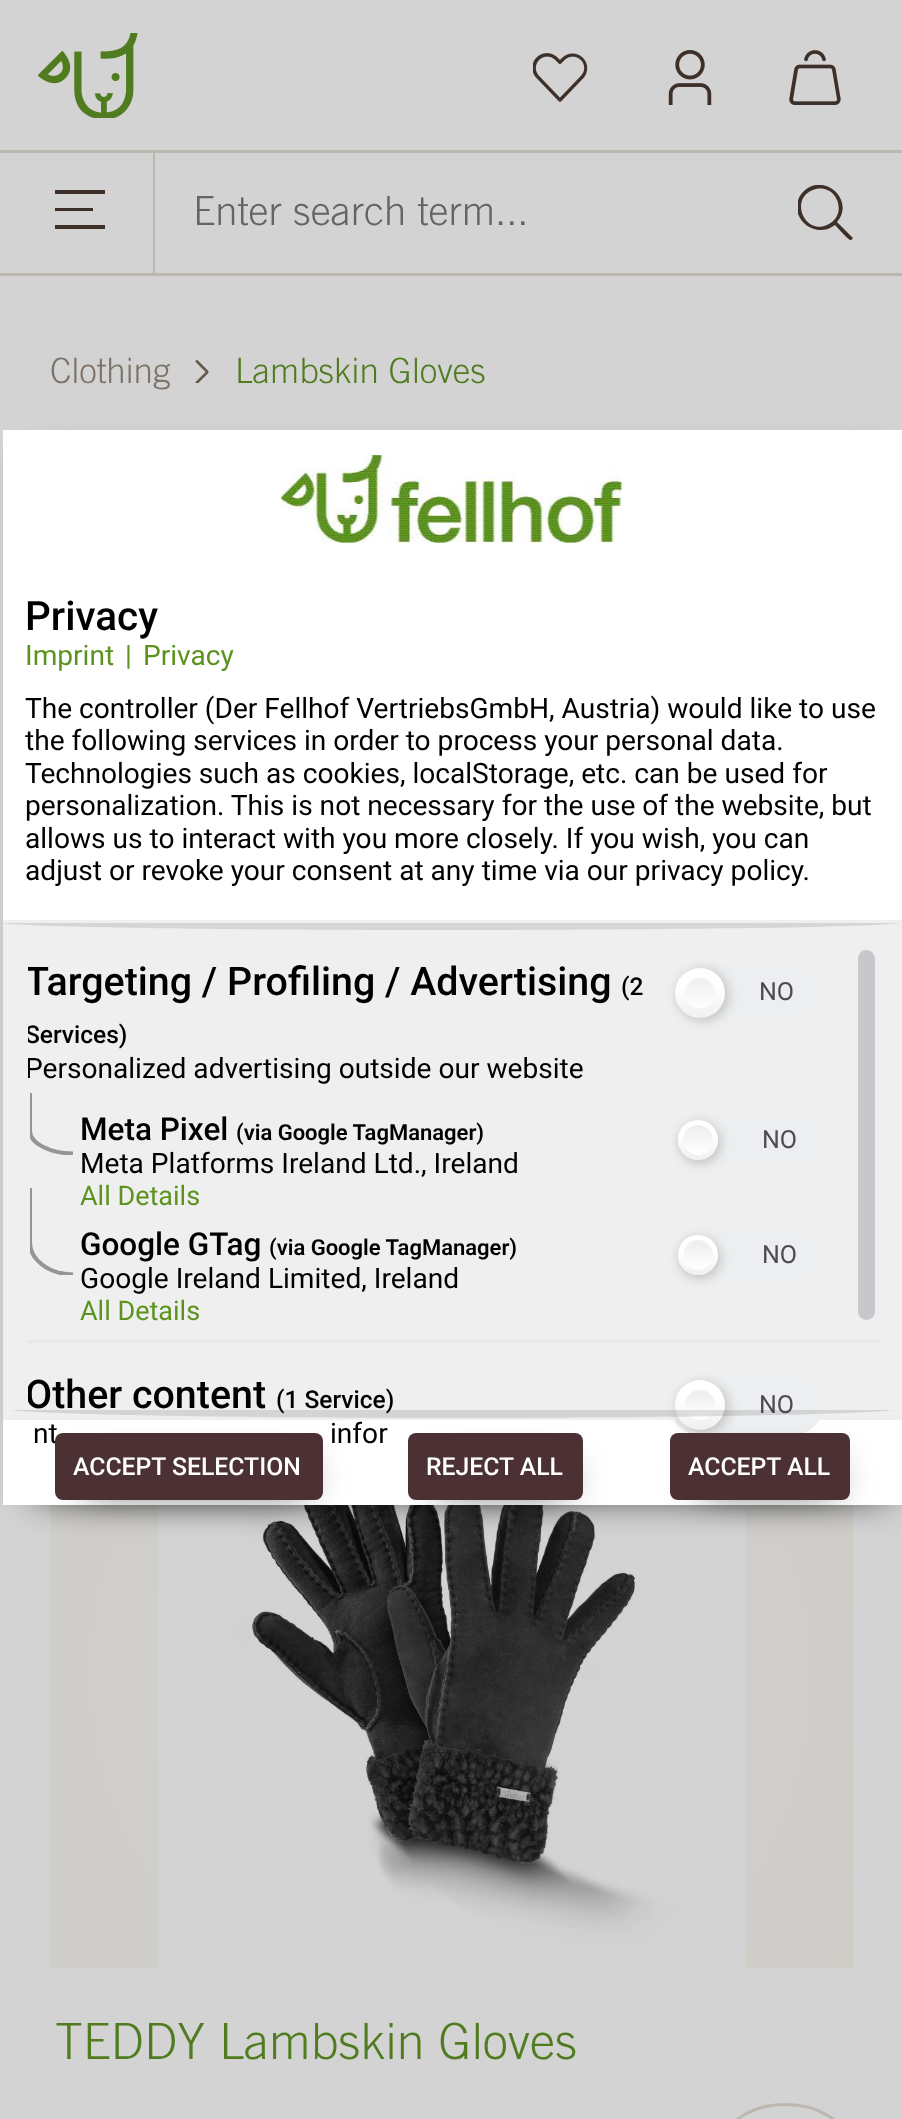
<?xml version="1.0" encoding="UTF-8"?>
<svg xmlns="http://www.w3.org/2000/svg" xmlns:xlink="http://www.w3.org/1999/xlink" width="902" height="2119">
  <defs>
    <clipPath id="clip1"><rect x="798" y="185" width="55" height="55" /></clipPath>
    <radialGradient id="g1" gradientUnits="userSpaceOnUse" cx="451" cy="1675" r="497"><stop offset="0" stop-color="#d1d0cd" /><stop offset="1" stop-color="#cfcdc8" /></radialGradient>
    <linearGradient id="g2" gradientUnits="userSpaceOnUse" x1="699" y1="968" x2="699" y2="1018"><stop offset="0.4" stop-color="#ffffff" /><stop offset="1" stop-color="#f0f0f0" /></linearGradient>
    <linearGradient id="g3" gradientUnits="userSpaceOnUse" x1="699" y1="978" x2="699" y2="1008"><stop offset="0" stop-color="#eeeeee" /><stop offset="1" stop-color="#ffffff" /></linearGradient>
    <clipPath id="clip2"><rect x="30" y="1093" width="43" height="62" /></clipPath>
    <clipPath id="clip3"><path d="M 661 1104 h 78 v 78 h -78 z m 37 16 c 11 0 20 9 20 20 c 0 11 -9 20 -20 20 c -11 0 -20 -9 -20 -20 c 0 -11 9 -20 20 -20 z" clip-rule="evenodd" /></clipPath>
    <linearGradient id="g4" gradientUnits="userSpaceOnUse" x1="696" y1="1120" x2="696" y2="1160"><stop offset="0.4" stop-color="#ffffff" /><stop offset="1" stop-color="#f0f0f0" /></linearGradient>
    <linearGradient id="g5" gradientUnits="userSpaceOnUse" x1="696" y1="1125" x2="696" y2="1155"><stop offset="0" stop-color="#eeeeee" /><stop offset="1" stop-color="#ffffff" /></linearGradient>
    <clipPath id="clip4"><rect x="30" y="1188" width="43" height="87" /></clipPath>
    <clipPath id="clip5"><path d="M 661 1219 h 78 v 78 h -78 z m 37 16 c 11 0 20 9 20 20 c 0 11 -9 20 -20 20 c -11 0 -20 -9 -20 -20 c 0 -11 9 -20 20 -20 z" clip-rule="evenodd" /></clipPath>
    <linearGradient id="g6" gradientUnits="userSpaceOnUse" x1="696" y1="1235" x2="696" y2="1275"><stop offset="0.4" stop-color="#ffffff" /><stop offset="1" stop-color="#f0f0f0" /></linearGradient>
    <linearGradient id="g7" gradientUnits="userSpaceOnUse" x1="696" y1="1240" x2="696" y2="1270"><stop offset="0" stop-color="#eeeeee" /><stop offset="1" stop-color="#ffffff" /></linearGradient>
    <linearGradient id="g8" gradientUnits="userSpaceOnUse" x1="699" y1="1380" x2="699" y2="1430"><stop offset="0.4" stop-color="#ffffff" /><stop offset="1" stop-color="#f0f0f0" /></linearGradient>
    <linearGradient id="g9" gradientUnits="userSpaceOnUse" x1="699" y1="1390" x2="699" y2="1420"><stop offset="0" stop-color="#eeeeee" /><stop offset="1" stop-color="#ffffff" /></linearGradient>
    <clipPath id="clip6"><rect x="28" y="945" width="852" height="500" /></clipPath>
  </defs>
  <rect width="100%" height="100%" fill="#d3d3d3" />
  <rect y="273" width="902" height="3" fill="#bcb8b0" />
  <rect y="150" width="902" height="3" fill="#bcb8b0" />
  <rect x="55" y="190" width="50" height="4" fill="#3c3028" />
  <rect x="55" y="208" width="38" height="3" fill="#3c3028" />
  <rect x="55" y="225" width="50" height="4" fill="#3c3028" />
  <image x="38" y="33" width="100" height="85" xlink:href="image1.png" />
  <image x="533" y="53" width="55" height="49" xlink:href="image2.png" />
  <image x="668" y="50" width="44" height="55" xlink:href="image3.png" />
  <image x="789" y="50" width="52" height="55" xlink:href="image4.png" />
  <rect x="153" y="153" width="2" height="120" fill="#bcb8b0" />
  <g clip-path="url(#clip1)">
    <path d="M 852 237 l -15 -15 c 19 -22 -14 -51 -34 -30 c -19 21 10 50 32 33 c 2 2 14 16 16 15 c 2 -1 2 -2 1 -3 z m -25 -12 c -22 10 -38 -26 -14 -35 c 23 -9 37 25 14 35 z" fill="#3c3028" />
  </g>
  <image x="195" y="360" width="14" height="23" xlink:href="image5.png" />
  <rect x="50" y="1505" width="803" height="463" fill="url(#g1)" />
  <image x="157" y="1505" width="588" height="463" xlink:href="image6.png" />
  <rect x="724.5" y="2104.5" width="122" height="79" rx="61" fill="none" stroke="#bcb8b0" stroke-width="3" />
  <rect x="35" y="468" width="853" height="1025" fill="#000000" filter="blur(19px)" />
  <rect x="3" y="430" width="899" height="1075" fill="#ffffff" />
  <image x="280" y="455" width="342" height="88" xlink:href="image7.png" />
  <rect x="3" y="920" width="899" height="500" fill="#efefef" />
  <path d="M 1 923 c 22 4 215 7 450 7 c 235 0 428 -3 450 -7 z" fill="#d5d5d5" />
  <rect x="670" y="963" width="153" height="60" rx="30" fill="#eceeef" />
  <rect x="678" y="970" width="50" height="50" rx="25" fill="#000000" fill-opacity="0.2" filter="blur(6px)" />
  <circle cx="700" cy="993" r="25" fill="url(#g2)" />
  <circle cx="700" cy="993" r="15" fill="url(#g3)" />
  <g clip-path="url(#clip2)">
    <path d="M 73.5 1153.5 c -24 0 -43.5 -10.5 -43.5 -22.5 v -38.5" fill="none" stroke="#959596" stroke-width="4" />
  </g>
  <rect x="673" y="1115" width="152" height="50" rx="25" fill="#eceeef" />
  <g clip-path="url(#clip3)">
    <rect x="680" y="1123" width="40" height="40" rx="20" fill="#000000" fill-opacity="0.2" filter="blur(6px)" />
  </g>
  <circle cx="698" cy="1140" r="20" fill="url(#g4)" />
  <circle cx="698" cy="1140" r="15" fill="url(#g5)" />
  <g clip-path="url(#clip4)">
    <path d="M 73.5 1274.5 c -24 0 -43.5 -14.5 -43.5 -32 v -55" fill="none" stroke="#959596" stroke-width="4" />
  </g>
  <rect x="673" y="1230" width="152" height="50" rx="25" fill="#eceeef" />
  <g clip-path="url(#clip5)">
    <rect x="680" y="1238" width="40" height="40" rx="20" fill="#000000" fill-opacity="0.2" filter="blur(6px)" />
  </g>
  <circle cx="698" cy="1255" r="20" fill="url(#g6)" />
  <circle cx="698" cy="1255" r="15" fill="url(#g7)" />
  <rect x="28" y="1340" width="852" height="3" fill="#e8e8e8" />
  <rect x="670" y="1375" width="153" height="60" rx="30" fill="#eceeef" />
  <rect x="678" y="1383" width="50" height="50" rx="25" fill="#000000" fill-opacity="0.2" filter="blur(6px)" />
  <circle cx="700" cy="1405" r="25" fill="url(#g8)" />
  <circle cx="700" cy="1405" r="15" fill="url(#g9)" />
  <rect x="858" y="950" width="17" height="370" rx="8.5" fill="#c7c7cc" />
  <text x="193" y="225" style="font-family: Trade Gothic; font-size: 40px; font-weight: 300; fill: #646464">Enter search term...</text>
  <text x="50" y="383" style="font-family: Trade Gothic; font-size: 35px; font-weight: 300; fill: #7c7268">Clothing</text>
  <text x="235" y="383" style="font-family: Trade Gothic; font-size: 35px; font-weight: 300; fill: #507c1f">Lambskin Gloves</text>
  <text x="55" y="2059" style="font-family: Trade Gothic; font-size: 50px; font-weight: 300; fill: #507c1f">TEDDY Lambskin Gloves</text>
  <text x="25" y="630" style="font-family: Roboto; font-size: 40.5px; font-weight: 500; fill: #000000">Privacy</text>
  <text x="25" y="665" style="font-family: Roboto; font-size: 28.1px; fill: #5c931e">Imprint</text>
  <text x="125" y="665" style="font-family: Roboto; font-size: 28.1px; fill: #5c931e">|</text>
  <text x="143" y="665" style="font-family: Roboto; font-size: 28.1px; fill: #5c931e">Privacy</text>
  <text x="25" y="718" style="font-family: Roboto; font-size: 28.1px; fill: #000000">The controller (Der Fellhof VertriebsGmbH, Austria) would like to use</text>
  <text x="25" y="750" style="font-family: Roboto; font-size: 28.1px; fill: #000000">the following services in order to process your personal data.</text>
  <text x="25" y="783" style="font-family: Roboto; font-size: 28.1px; fill: #000000">Technologies such as cookies, localStorage, etc. can be used for</text>
  <text x="25" y="815" style="font-family: Roboto; font-size: 28.1px; fill: #000000">personalization. This is not necessary for the use of the website, but</text>
  <text x="25" y="848" style="font-family: Roboto; font-size: 28.1px; fill: #000000">allows us to interact with you more closely. If you wish, you can</text>
  <text x="25" y="880" style="font-family: Roboto; font-size: 28.1px; fill: #000000">adjust or revoke your consent at any time via our privacy policy.</text>
  <g clip-path="url(#clip6)">
    <text x="25" y="995" style="font-family: Roboto; font-size: 39.4px; font-weight: 500; fill: #000000">Targeting / Profiling / Advertising</text>
  </g>
  <text x="621" y="995" style="font-family: Roboto; font-size: 24.5px; font-weight: 500; fill: #000000">(2</text>
  <g clip-path="url(#clip6)">
    <text x="25" y="1043" style="font-family: Roboto; font-size: 24.5px; font-weight: 500; fill: #000000">Services)</text>
    <text x="25" y="1078" style="font-family: Roboto; font-size: 28.1px; fill: #000000">Personalized advertising outside our website</text>
  </g>
  <text x="759" y="1000" style="font-family: Roboto; font-size: 25px; fill: #4d4c53">NO</text>
  <text x="80" y="1140" style="font-family: Roboto; font-size: 31.5px; font-weight: 500; fill: #000000">Meta Pixel</text>
  <text x="236" y="1140" style="font-family: Roboto; font-size: 22px; font-weight: 600; fill: #000000">(via Google TagManager)</text>
  <text x="80" y="1173" style="font-family: Roboto; font-size: 28.1px; fill: #000000">Meta Platforms Ireland Ltd., Ireland</text>
  <text x="80" y="1205" style="font-family: Roboto; font-size: 27px; fill: #5c931e">All Details</text>
  <text x="762" y="1148" style="font-family: Roboto; font-size: 25px; fill: #4d4c53">NO</text>
  <text x="80" y="1255" style="font-family: Roboto; font-size: 31.5px; font-weight: 500; fill: #000000">Google GTag</text>
  <text x="269" y="1255" style="font-family: Roboto; font-size: 22px; font-weight: 600; fill: #000000">(via Google TagManager)</text>
  <text x="80" y="1288" style="font-family: Roboto; font-size: 28.1px; fill: #000000">Google Ireland Limited, Ireland</text>
  <text x="80" y="1320" style="font-family: Roboto; font-size: 27px; fill: #5c931e">All Details</text>
  <text x="762" y="1263" style="font-family: Roboto; font-size: 25px; fill: #4d4c53">NO</text>
  <g clip-path="url(#clip6)">
    <text x="25" y="1408" style="font-family: Roboto; font-size: 39.4px; font-weight: 500; fill: #000000">Other content</text>
  </g>
  <text x="276" y="1408" style="font-family: Roboto; font-size: 24.5px; font-weight: 500; fill: #000000">(1 Service)</text>
  <text x="33" y="1443" style="font-family: Roboto; font-size: 28.1px; fill: #000000">nt</text>
  <text x="330" y="1443" style="font-family: Roboto; font-size: 28.1px; fill: #000000">infor</text>
  <text x="759" y="1413" style="font-family: Roboto; font-size: 25px; fill: #4d4c53">NO</text>
  <path d="M 11 1410 c 22 4 211 8 441 8 c 230 0 419 -4 441 -8 z" fill="#3f3f3f" fill-opacity="0.15" />
  <rect x="88" y="1470" width="217" height="18" fill="#000000" filter="blur(19px)" />
  <rect x="55" y="1433" width="268" height="67" rx="8" fill="#4b3134" />
  <text x="73" y="1475" style="font-family: Roboto; font-size: 24.75px; font-weight: 500; fill: #ffffff">ACCEPT SELECTION</text>
  <rect x="440" y="1470" width="125" height="18" fill="#000000" filter="blur(19px)" />
  <rect x="408" y="1433" width="175" height="67" rx="8" fill="#4b3134" />
  <text x="426" y="1475" style="font-family: Roboto; font-size: 24.75px; font-weight: 500; fill: #ffffff">REJECT ALL</text>
  <rect x="703" y="1470" width="130" height="18" fill="#000000" filter="blur(19px)" />
  <rect x="670" y="1433" width="180" height="67" rx="8" fill="#4b3134" />
  <text x="688" y="1475" style="font-family: Roboto; font-size: 24.75px; font-weight: 500; fill: #ffffff">ACCEPT ALL</text>
</svg>
